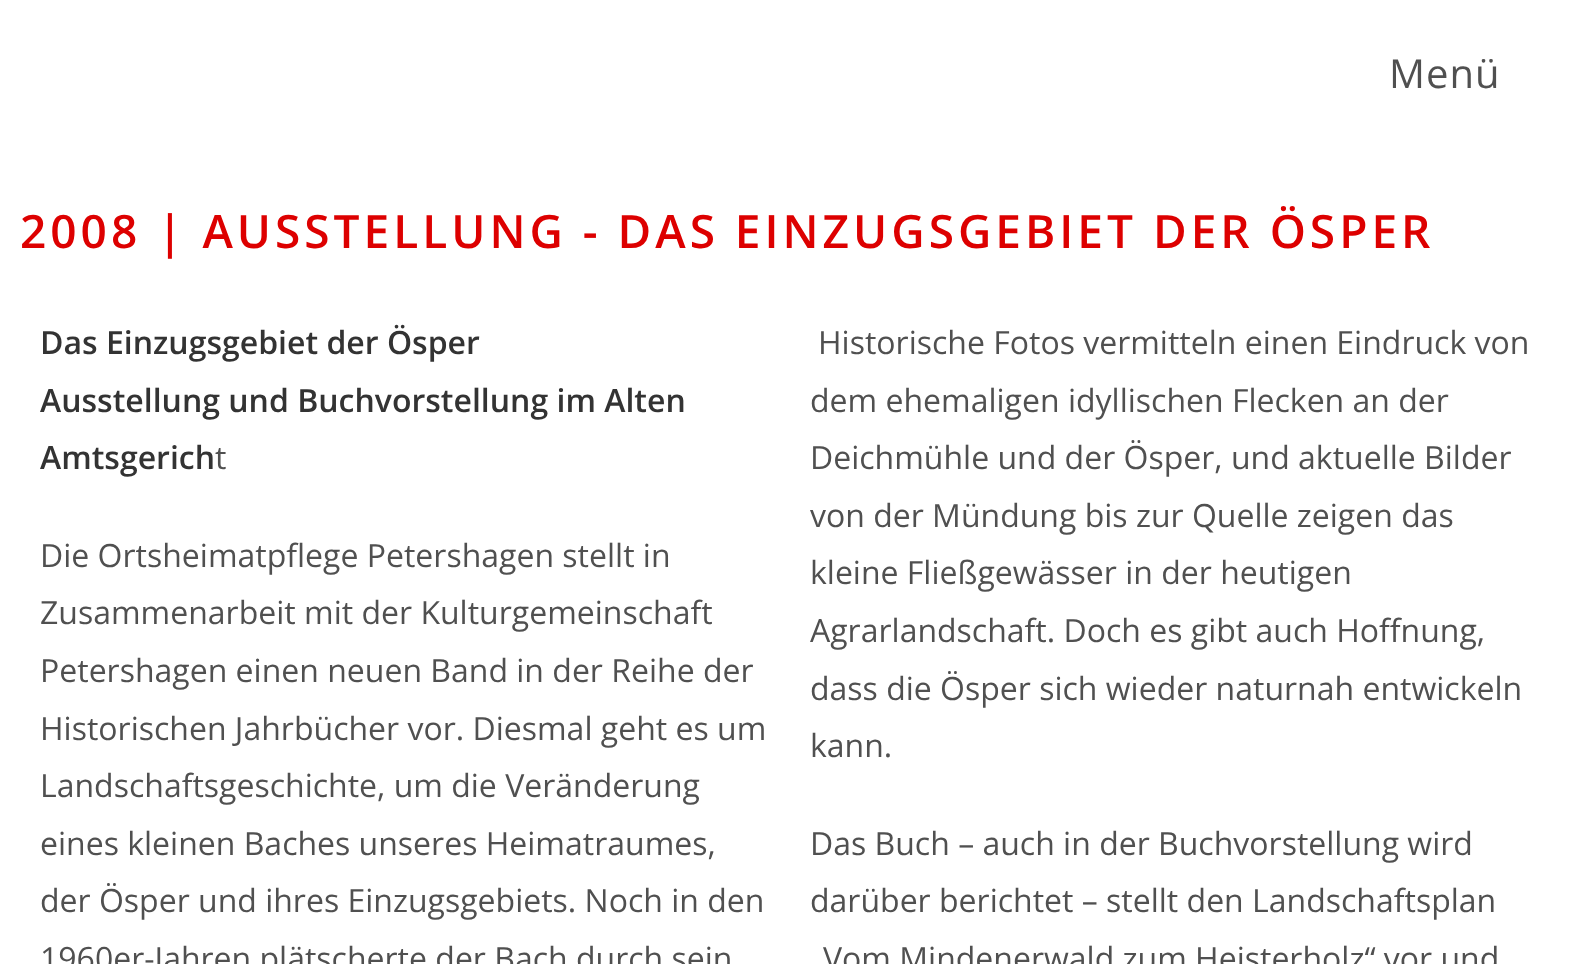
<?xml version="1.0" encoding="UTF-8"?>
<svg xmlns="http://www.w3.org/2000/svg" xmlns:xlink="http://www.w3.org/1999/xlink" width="1579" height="964">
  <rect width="100%" height="100%" fill="#ffffff" />
  <text x="1389" y="88" style="font-family: Open Sans; font-size: 40px; letter-spacing: 1px; fill: #505050">Menü</text>
  <text x="20" y="248" style="font-family: Open Sans; font-size: 46px; font-weight: 600; letter-spacing: 4px; fill: #dd0000">2008 | AUSSTELLUNG - DAS EINZUGSGEBIET DER ÖSPER</text>
  <text x="40" y="354" style="font-family: Open Sans; font-size: 32px; font-weight: 600; fill: #333333">Das Einzugsgebiet der Ösper</text>
  <text x="40" y="412" style="font-family: Open Sans; font-size: 32px; font-weight: 600; fill: #333333">Ausstellung und Buchvorstellung im Alten</text>
  <text x="40" y="469" style="font-family: Open Sans; font-size: 32px; font-weight: 600; fill: #333333">Amtsgerich</text>
  <text x="215" y="469" style="font-family: Open Sans; font-size: 32px; fill: #505050">t</text>
  <text x="40" y="567" style="font-family: Open Sans; font-size: 32px; fill: #505050">Die Ortsheimatpflege Petershagen stellt in</text>
  <text x="40" y="624" style="font-family: Open Sans; font-size: 32px; fill: #505050">Zusammenarbeit mit der Kulturgemeinschaft</text>
  <text x="40" y="682" style="font-family: Open Sans; font-size: 32px; fill: #505050">Petershagen einen neuen Band in der Reihe der</text>
  <text x="40" y="740" style="font-family: Open Sans; font-size: 32px; fill: #505050">Historischen Jahrbücher vor. Diesmal geht es um</text>
  <text x="40" y="797" style="font-family: Open Sans; font-size: 32px; fill: #505050">Landschaftsgeschichte, um die Veränderung</text>
  <text x="40" y="855" style="font-family: Open Sans; font-size: 32px; fill: #505050">eines kleinen Baches unseres Heimatraumes,</text>
  <text x="40" y="912" style="font-family: Open Sans; font-size: 32px; fill: #505050">der Ösper und ihres Einzugsgebiets. Noch in den</text>
  <text x="40" y="970" style="font-family: Open Sans; font-size: 32px; fill: #505050">1960er-Jahren plätscherte der Bach durch sein</text>
  <text x="818" y="354" style="font-family: Open Sans; font-size: 32px; fill: #505050">Historische Fotos vermitteln einen Eindruck von</text>
  <text x="810" y="412" style="font-family: Open Sans; font-size: 32px; fill: #505050">dem ehemaligen idyllischen Flecken an der</text>
  <text x="810" y="469" style="font-family: Open Sans; font-size: 32px; fill: #505050">Deichmühle und der Ösper, und aktuelle Bilder</text>
  <text x="810" y="527" style="font-family: Open Sans; font-size: 32px; fill: #505050">von der Mündung bis zur Quelle zeigen das</text>
  <text x="810" y="584" style="font-family: Open Sans; font-size: 32px; fill: #505050">kleine Fließgewässer in der heutigen</text>
  <text x="810" y="642" style="font-family: Open Sans; font-size: 32px; fill: #505050">Agrarlandschaft. Doch es gibt auch Hoffnung,</text>
  <text x="810" y="700" style="font-family: Open Sans; font-size: 32px; fill: #505050">dass die Ösper sich wieder naturnah entwickeln</text>
  <text x="810" y="757" style="font-family: Open Sans; font-size: 32px; fill: #505050">kann.</text>
  <text x="810" y="855" style="font-family: Open Sans; font-size: 32px; fill: #505050">Das Buch – auch in der Buchvorstellung wird</text>
  <text x="810" y="912" style="font-family: Open Sans; font-size: 32px; fill: #505050">darüber berichtet – stellt den Landschaftsplan</text>
  <text x="823" y="970" style="font-family: Open Sans; font-size: 32px; fill: #505050">Vom Mindenerwald zum Heisterholz“ vor und</text>
</svg>
